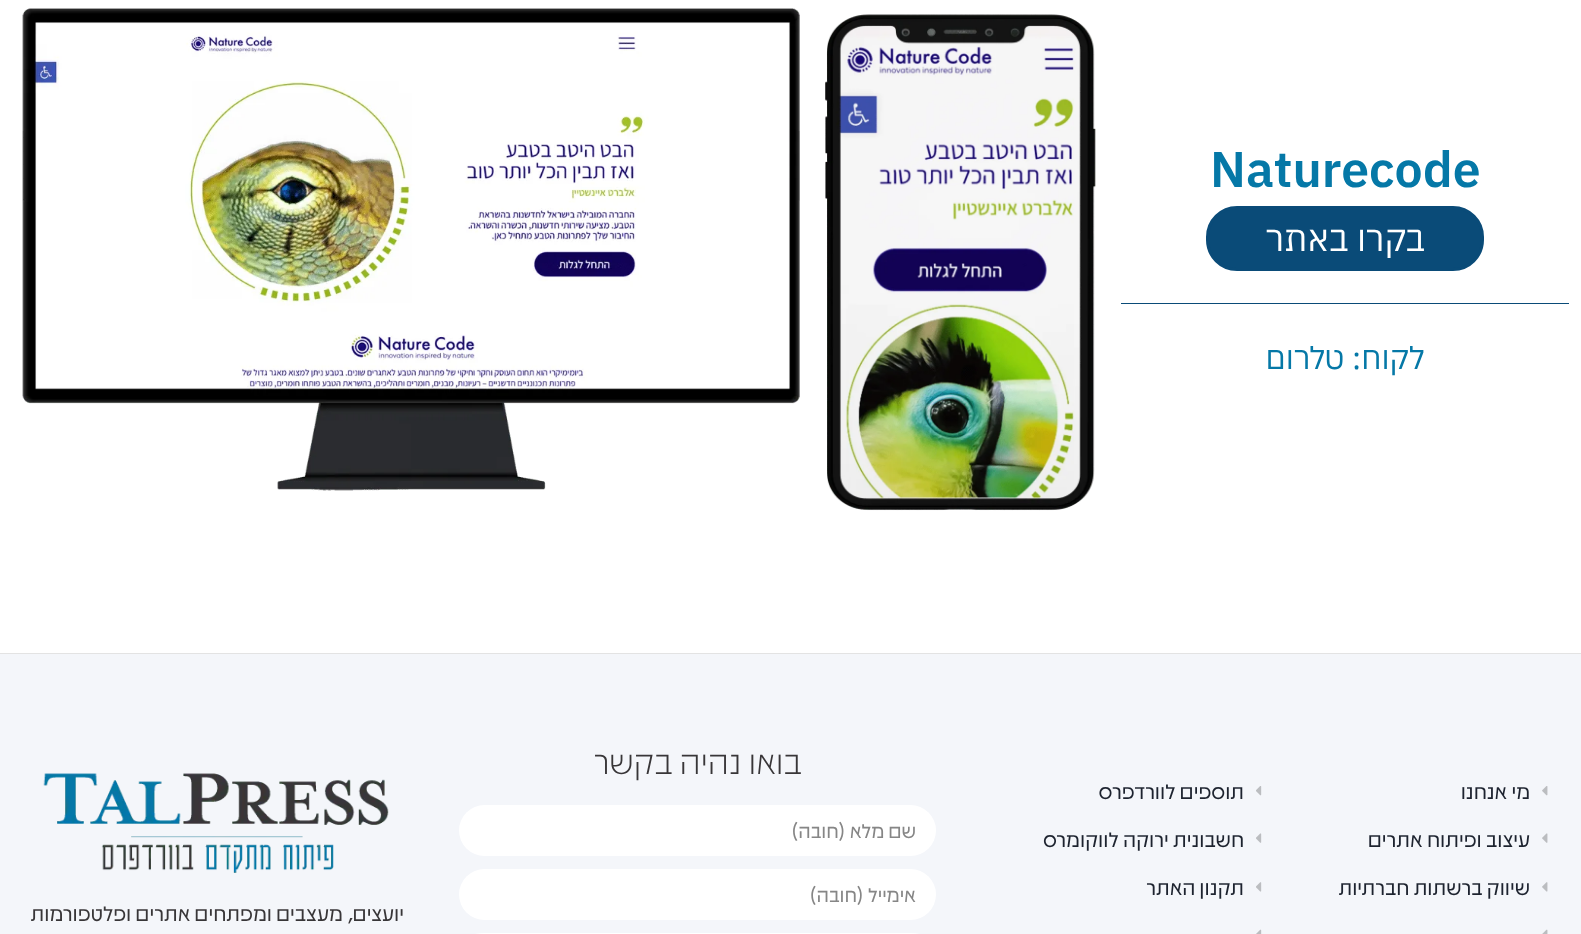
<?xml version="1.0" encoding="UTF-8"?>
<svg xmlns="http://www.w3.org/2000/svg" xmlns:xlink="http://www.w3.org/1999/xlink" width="1581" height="934">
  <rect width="100%" height="100%" fill="#ffffff" />
  <rect x="1207.5" y="207.5" width="275" height="62" rx="29.5" fill="#0a4b78" stroke="#0a4b78" stroke-width="3" />
  <rect x="1121" y="303" width="448" height="1" fill="#0a4b78" />
  <image x="825" y="14" width="271" height="497" xlink:href="image1.png" />
  <image x="22" y="8" width="778" height="483" xlink:href="image2.png" />
  <rect y="654" width="1581" height="280" fill="#f4f6fa" />
  <rect y="653" width="1581" height="1" fill="#e3e3e3" />
  <image x="1542" y="786" width="6" height="10" xlink:href="image3.png" />
  <image x="1542" y="833" width="6" height="10" xlink:href="image4.png" />
  <image x="1542" y="882" width="6" height="10" xlink:href="image5.png" />
  <image x="1542" y="929" width="6" height="5" xlink:href="image6.png" />
  <image x="1256" y="786" width="6" height="10" xlink:href="image7.png" />
  <image x="1256" y="833" width="6" height="10" xlink:href="image8.png" />
  <image x="1256" y="882" width="6" height="10" xlink:href="image9.png" />
  <image x="1256" y="929" width="6" height="5" xlink:href="image10.png" />
  <rect x="459" y="805" width="477" height="51" rx="25.5" fill="#ffffff" />
  <rect x="459" y="869" width="477" height="51" rx="25.5" fill="#ffffff" />
  <rect x="459" y="933" width="477" height="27" rx="25.5" fill="#ffffff" />
  <image x="43" y="773" width="346" height="100" xlink:href="image11.png" />
  <text x="1210" y="187" style="font-family: IBM Plex Sans Hebrew; font-size: 50px; font-weight: 600; fill: #0578a7">Naturecode</text>
  <text x="1425" y="251" style="font-family: IBM Plex Sans Hebrew; font-size: 35px; direction: rtl; fill: #ffffff">בקרו באתר</text>
  <text x="1424" y="369" style="font-family: IBM Plex Sans Hebrew; font-size: 31.25px; direction: rtl; fill: #0578a7">לקוח: טלרום</text>
  <text x="1530" y="799" style="font-family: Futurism; font-size: 23.75px; direction: rtl; fill: #1d232f">מי אנחנו</text>
  <text x="1530" y="847" style="font-family: Futurism; font-size: 23.75px; direction: rtl; fill: #1d232f">עיצוב ופיתוח אתרים</text>
  <text x="1530" y="895" style="font-family: Futurism; font-size: 23.75px; direction: rtl; fill: #1d232f">שיווק ברשתות חברתיות</text>
  <text x="1244" y="799" style="font-family: Futurism; font-size: 23.75px; direction: rtl; fill: #1d232f">תוספים לוורדפרס</text>
  <text x="1244" y="847" style="font-family: Futurism; font-size: 23.75px; direction: rtl; fill: #1d232f">חשבונית ירוקה לווקומרס</text>
  <text x="1244" y="895" style="font-family: Futurism; font-size: 23.75px; direction: rtl; fill: #1d232f">תקנון האתר</text>
  <text x="802" y="774" style="font-family: Futurism; font-size: 38.75px; font-weight: 300; direction: rtl; fill: #383638">בואו נהיה בקשר</text>
  <text x="916" y="838" style="font-family: Futurism; font-size: 22.5px; direction: rtl; fill: #868686">שם מלא (חובה)</text>
  <text x="916" y="902" style="font-family: Futurism; font-size: 22.5px; direction: rtl; fill: #868686">אימייל (חובה)</text>
  <text x="404" y="921" style="font-family: Futurism; font-size: 23.75px; direction: rtl; fill: #383638">יועצים, מעצבים ומפתחים אתרים ופלטפורמות</text>
</svg>
